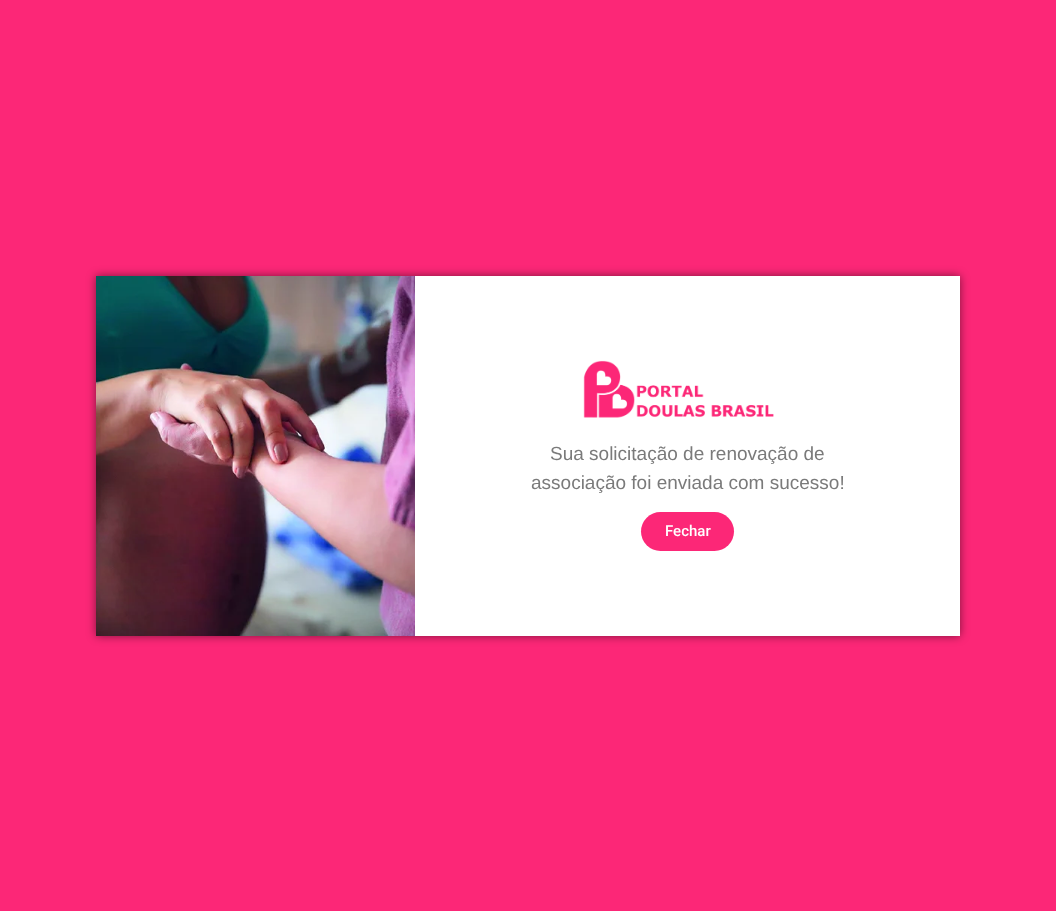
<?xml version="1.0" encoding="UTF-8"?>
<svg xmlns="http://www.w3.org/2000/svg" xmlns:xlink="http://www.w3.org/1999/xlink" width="1056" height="911">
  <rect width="100%" height="100%" fill="#fc2777" />
  <rect x="96" y="276" width="864" height="360" fill="#000000" fill-opacity="0.5" filter="blur(5px)" />
  <image x="96" y="276" width="319" height="360" xlink:href="image1.png" />
  <rect x="415" y="276" width="545" height="360" fill="#ffffff" />
  <image x="583" y="360" width="191" height="58" xlink:href="image2.png" />
  <rect x="641" y="512" width="93" height="39" rx="19.5" fill="#fc2777" />
  <text x="550" y="460" style="font-family: Liberation Sans; font-size: 19px; fill: #7a7a7a">Sua solicitação de renovação de</text>
  <text x="531" y="489" style="font-family: Liberation Sans; font-size: 19px; fill: #7a7a7a">associação foi enviada com sucesso!</text>
  <text x="665" y="536" style="font-family: Roboto; font-size: 15px; font-weight: 500; fill: #ffffff">Fechar</text>
</svg>
